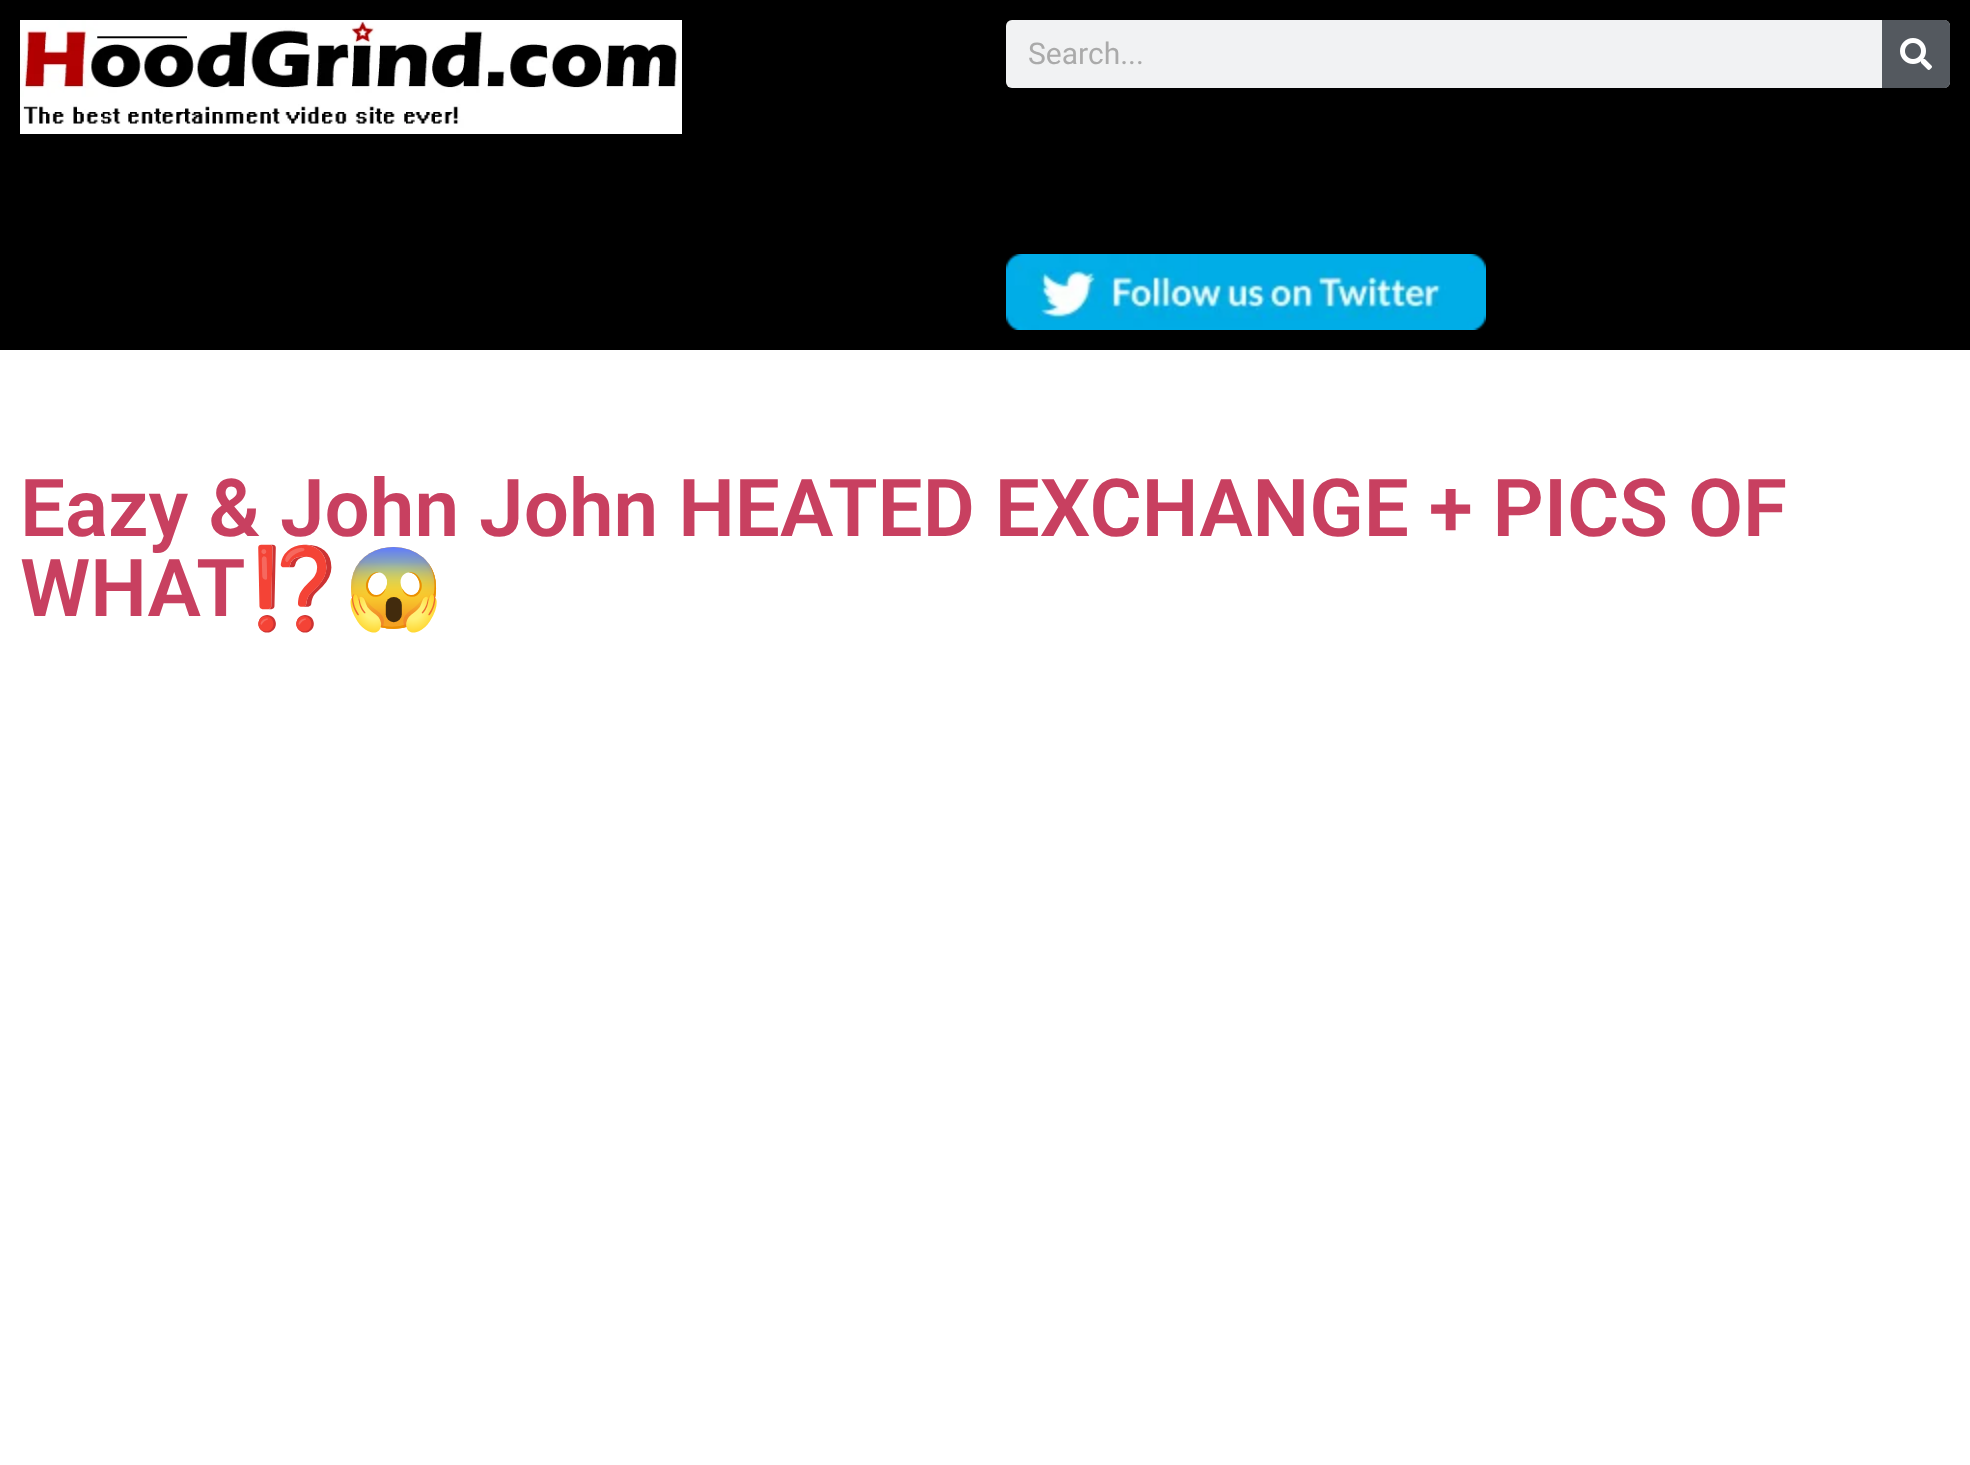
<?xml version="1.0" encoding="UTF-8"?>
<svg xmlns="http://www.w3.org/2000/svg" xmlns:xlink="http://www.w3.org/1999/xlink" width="1970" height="1465">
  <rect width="100%" height="100%" fill="#ffffff" />
  <rect width="1970" height="350" fill="#000000" />
  <image x="20" y="20" width="662" height="114" xlink:href="image1.png" />
  <rect x="1006" y="20" width="944" height="68" rx="6" fill="#f1f2f3" />
  <path d="M 1882 20 h 62 c 3.5 0 6 2.5 6 6 v 56 c 0 3.5 -2.5 6 -6 6 h -62 z" fill="#54595f" />
  <image x="1900" y="38" width="32" height="32" xlink:href="image2.png" />
  <image x="1006" y="254" width="480" height="76" xlink:href="image3.png" />
  <text x="1028" y="64" style="font-family: Roboto; font-size: 30px; fill: #aaaaaa">Search...</text>
  <text x="20" y="536" style="font-family: Roboto; font-size: 80px; font-weight: 600; fill: #c84060">Eazy &amp; John John HEATED EXCHANGE + PICS OF</text>
  <text x="20" y="616" style="font-family: Roboto; font-size: 80px; font-weight: 600; fill: #c84060">WHAT</text>
  <text x="245" y="616" style="font-family: Noto Color Emoji; font-size: 80px; font-weight: bold; fill: #c84060">⁉️😱</text>
</svg>
